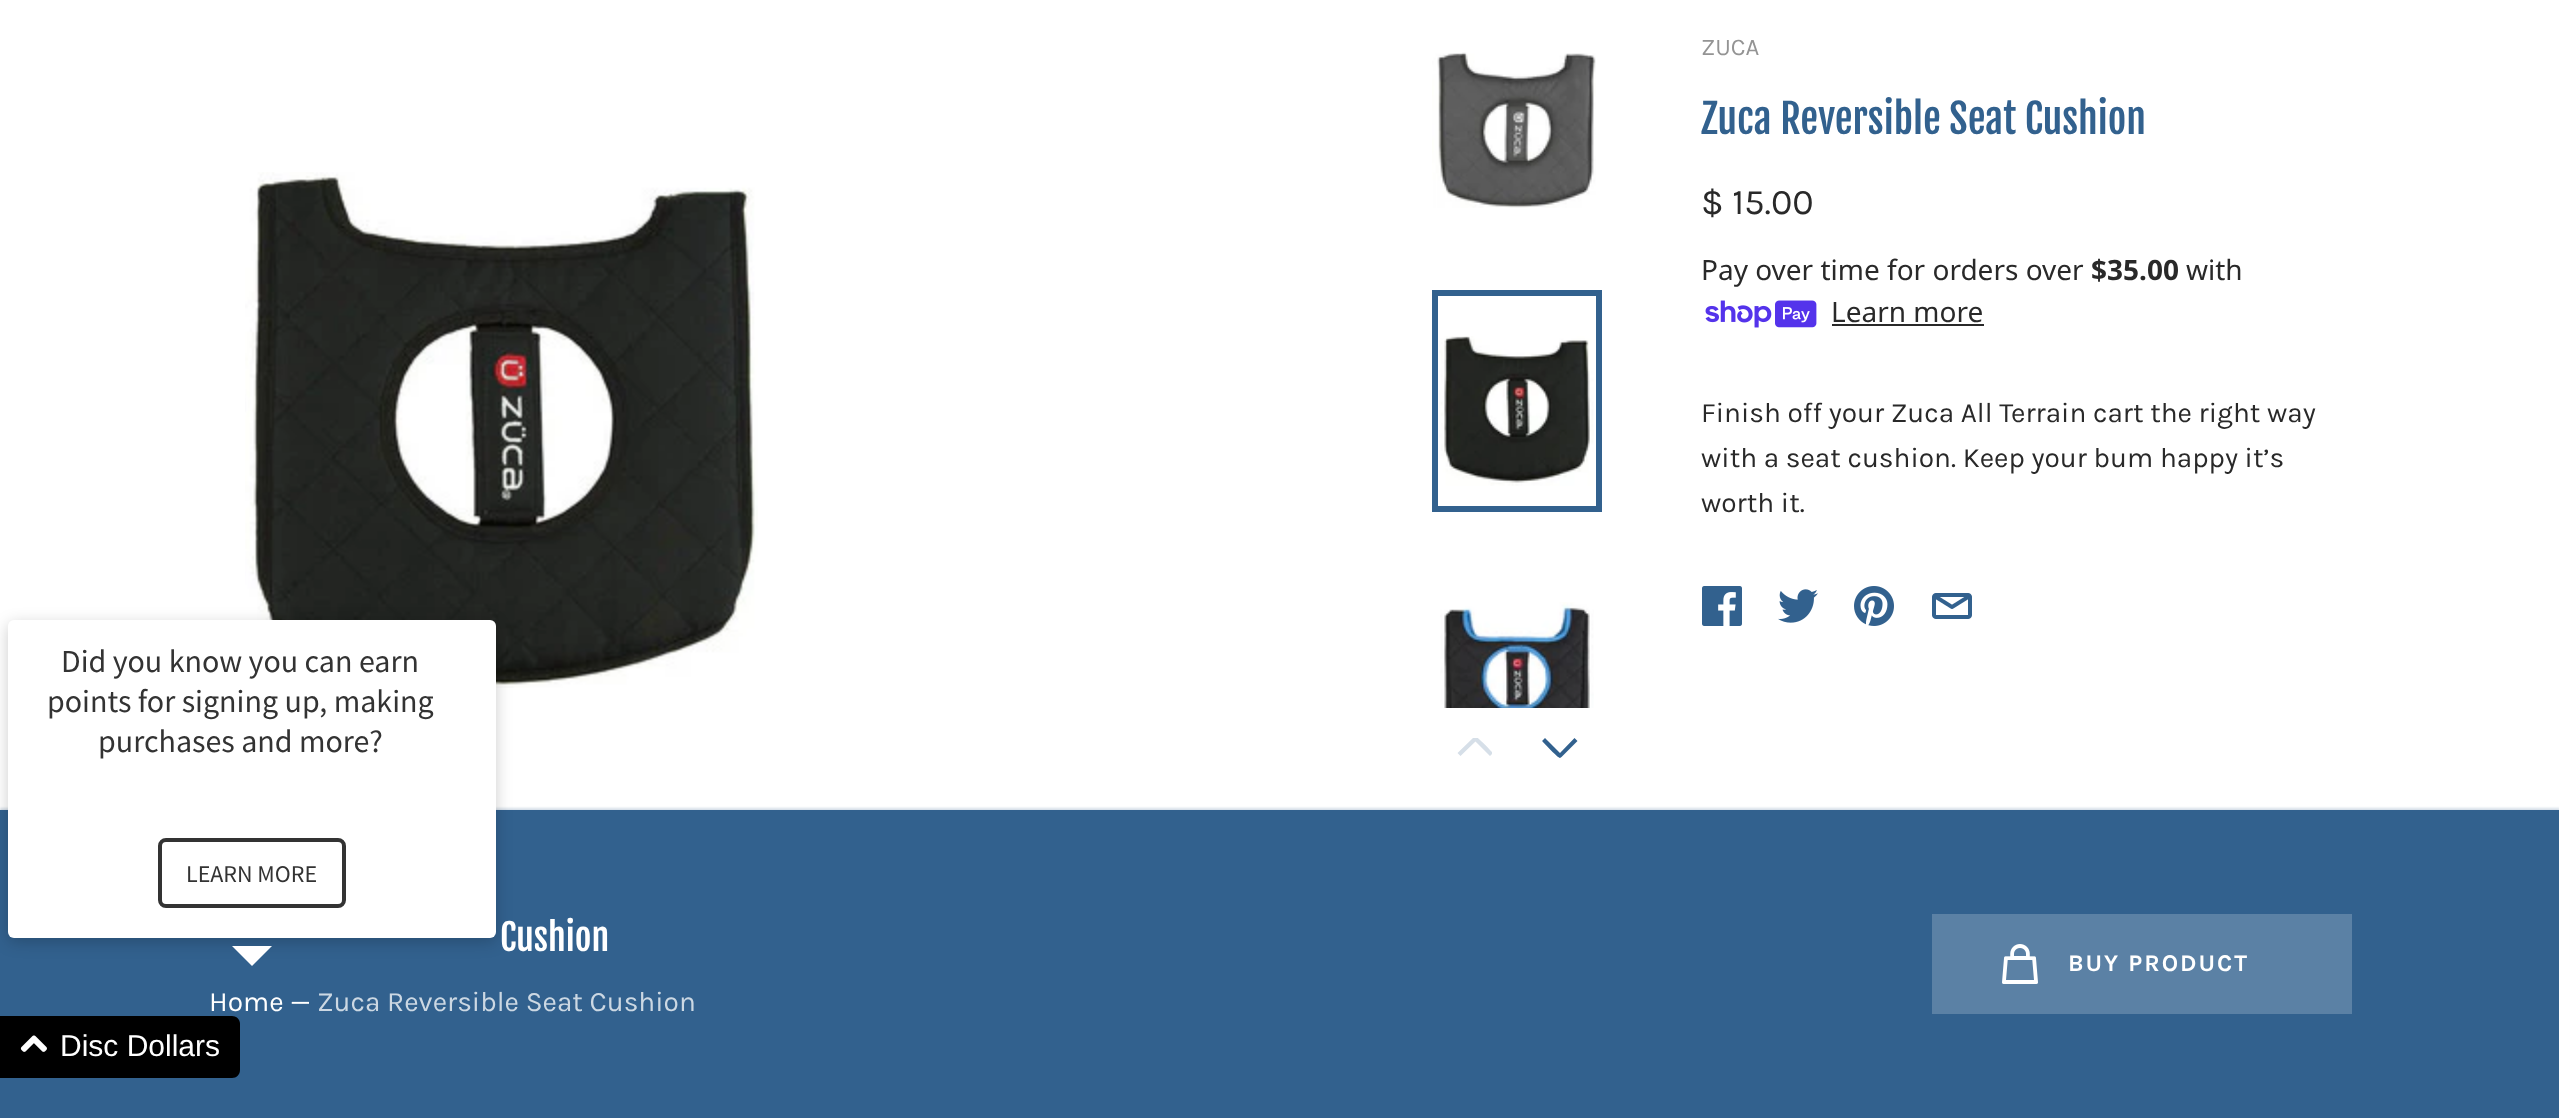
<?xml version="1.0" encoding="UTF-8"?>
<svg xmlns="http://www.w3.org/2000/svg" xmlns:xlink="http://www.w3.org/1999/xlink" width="2559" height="1118">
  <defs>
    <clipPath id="clip1"><rect x="1456" y="738" width="36" height="20" /></clipPath>
  </defs>
  <rect width="100%" height="100%" fill="#ffffff" />
  <image x="245" y="172" width="513" height="516" xlink:href="image1.png" />
  <image x="1432" y="52" width="164" height="156" xlink:href="image2.png" />
  <image x="1439" y="336" width="155" height="150" xlink:href="image3.png" />
  <rect x="1435" y="293" width="164" height="216" fill="none" stroke="#32618e" stroke-width="6" />
  <image x="1440" y="602" width="154" height="106" xlink:href="image4.png" />
  <g clip-path="url(#clip1)">
    <path d="M 1475.5 736.5 c 2 0 15.5 14.5 17.5 16.5 l -3 3 l -14.5 -14.5 l -15 14.5 l -3 -3 l 16.5 -16 z" fill="#d6dfe8" />
  </g>
  <path d="M 1560 758 c -2 0 -15.5 -14.5 -18 -17 l 3 -3 l 15 15 l 14.5 -15 l 3 3 l -16 16 z" fill="#32618e" />
  <image x="1705" y="300" width="112" height="28" xlink:href="image5.png" />
  <rect x="1832" y="324" width="152" height="2" fill="#292929" />
  <image x="1702" y="586" width="40" height="40" xlink:href="image6.png" />
  <image x="1778" y="589" width="40" height="34" xlink:href="image7.png" />
  <image x="1854" y="586" width="40" height="40" xlink:href="image8.png" />
  <image x="1932" y="593" width="40" height="26" xlink:href="image9.png" />
  <rect y="808" width="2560" height="308" fill="#32618e" fill-opacity="0.2" filter="blur(1px)" />
  <rect y="810" width="2559" height="308" fill="#32618e" />
  <rect x="1932" y="914" width="420" height="100" fill="#5b81a5" />
  <image x="2002" y="944" width="36" height="40" xlink:href="image10.png" />
  <rect x="8" y="624" width="488" height="318" rx="6" fill="#000000" fill-opacity="0.2" filter="blur(8px)" />
  <rect x="8" y="620" width="488" height="318" rx="6" fill="#ffffff" />
  <rect x="160" y="840" width="184" height="66" rx="6" fill="none" stroke="#333333" stroke-width="4" />
  <path d="M 232 946 h 40 l -20 20 z" fill="#ffffff" />
  <path d="M 0 1016 h 232 c 4.5 0 8 3.5 8 8 v 46 c 0 4.5 -3.5 8 -8 8 h -232 z" fill="#000000" />
  <image x="20" y="1035" width="27" height="17" xlink:href="image11.png" />
  <text x="1701" y="55" style="font-family: Karla; font-size: 24px; fill: #949494">ZUCA</text>
  <text x="1701" y="134" style="font-family: Fjalla One; font-size: 40px; fill: #32618e">Zuca Reversible Seat Cushion</text>
  <text x="1701" y="214" style="font-family: Karla; font-size: 36px; fill: #292929">$ 15.00</text>
  <text x="1701" y="280" style="font-family: Noto Sans; font-size: 28px; fill: #292929">Pay over time for orders over</text>
  <text x="2091" y="280" style="font-family: Noto Sans; font-size: 28px; font-weight: bold; fill: #292929">$35.00</text>
  <text x="2186" y="280" style="font-family: Noto Sans; font-size: 28px; fill: #292929">with</text>
  <text x="1831" y="322" style="font-family: Noto Sans; font-size: 28px; fill: #292929">Learn more</text>
  <text x="1701" y="422" style="font-family: Karla; font-size: 28px; fill: #292929">Finish off your Zuca All Terrain cart the right way</text>
  <text x="1701" y="467" style="font-family: Karla; font-size: 28px; fill: #292929">with a seat cushion. Keep your bum happy it’s</text>
  <text x="1701" y="512" style="font-family: Karla; font-size: 28px; fill: #292929">worth it.</text>
  <text x="500" y="951" style="font-family: Fjalla One; font-size: 36px; fill: #ffffff">Cushion</text>
  <text x="209" y="1011" style="font-family: Karla; font-size: 28px; fill: #ffffff">Home —</text>
  <text x="317" y="1011" style="font-family: Karla; font-size: 28px; fill: #ccd8e3">Zuca Reversible Seat Cushion</text>
  <text x="2068" y="971" style="font-family: Karla; font-size: 24px; font-weight: bold; letter-spacing: 2px; fill: #ffffff">BUY PRODUCT</text>
  <text x="61" y="672" style="font-family: Source Sans Pro; font-size: 32px; fill: #333333">Did you know you can earn</text>
  <text x="47" y="712" style="font-family: Source Sans Pro; font-size: 32px; fill: #333333">points for signing up, making</text>
  <text x="98" y="752" style="font-family: Source Sans Pro; font-size: 32px; fill: #333333">purchases and more?</text>
  <text x="186" y="882" style="font-family: Source Sans Pro; font-size: 24px; fill: #333333">LEARN MORE</text>
  <text x="60" y="1056" style="font-family: Liberation Sans; font-size: 30px; fill: #ffffff">Disc Dollars</text>
</svg>
